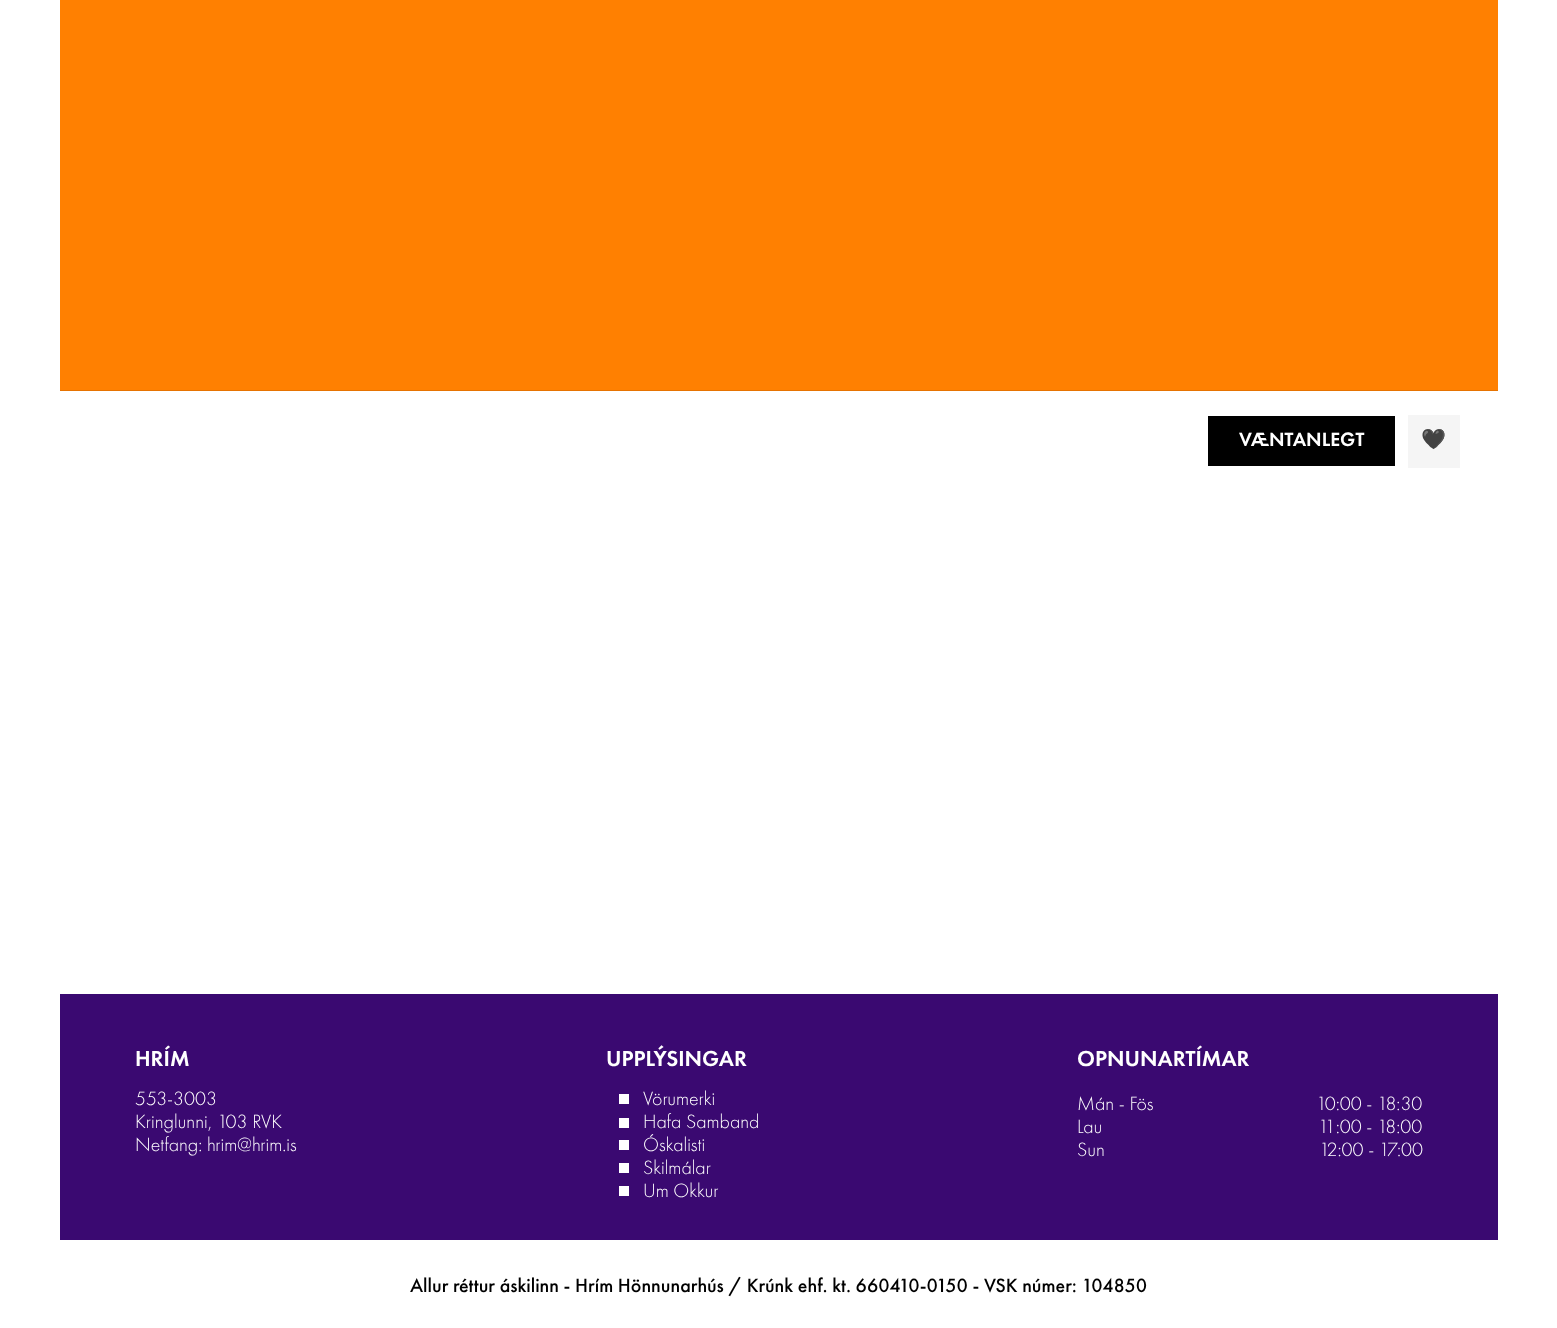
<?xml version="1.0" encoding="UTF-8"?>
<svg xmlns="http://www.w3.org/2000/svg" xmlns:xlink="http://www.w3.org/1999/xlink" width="1557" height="1328">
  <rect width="100%" height="100%" fill="#ffffff" />
  <rect x="60" width="1438" height="390" fill="#ff8001" />
  <rect x="60" y="390" width="1438" height="1" fill="#e67301" />
  <rect x="1208" y="416" width="187" height="50" fill="#000000" />
  <rect x="1408" y="415" width="52" height="53" fill="#f5f5f5" />
  <rect x="60" y="994" width="1438" height="246" fill="#3a0971" />
  <rect x="619" y="1094" width="10" height="10" fill="#ffffff" />
  <rect x="619" y="1118" width="10" height="10" fill="#ffffff" />
  <rect x="619" y="1140" width="10" height="10" fill="#ffffff" />
  <rect x="619" y="1163" width="10" height="10" fill="#ffffff" />
  <rect x="619" y="1186" width="10" height="10" fill="#ffffff" />
  <text x="1239" y="446" style="font-family: Futura PT; font-size: 20px; font-weight: 500; fill: #ffffff">VÆNTANLEGT</text>
  <text x="1421" y="446" style="font-family: Noto Color Emoji; font-size: 20px; fill: #999999">🖤</text>
  <text x="135" y="1066" style="font-family: Futura PT; font-size: 22.5px; font-weight: 500; fill: #ffffff">HRÍM</text>
  <text x="135" y="1105" style="font-family: Futura PT; font-size: 20px; font-weight: 300; fill: #ffffff">553-3003</text>
  <text x="135" y="1128" style="font-family: Futura PT; font-size: 20px; font-weight: 300; fill: #ffffff">Kringlunni, 103 RVK</text>
  <text x="135" y="1151" style="font-family: Futura PT; font-size: 20px; font-weight: 300; fill: #ffffff">Netfang: hrim@hrim.is</text>
  <text x="606" y="1066" style="font-family: Futura PT; font-size: 22.5px; font-weight: 500; fill: #ffffff">UPPLÝSINGAR</text>
  <text x="643" y="1105" style="font-family: Futura PT; font-size: 20px; font-weight: 300; fill: #ffffff">Vörumerki</text>
  <text x="643" y="1128" style="font-family: Futura PT; font-size: 20px; font-weight: 300; fill: #ffffff">Hafa Samband</text>
  <text x="643" y="1151" style="font-family: Futura PT; font-size: 20px; font-weight: 300; fill: #ffffff">Óskalisti</text>
  <text x="643" y="1174" style="font-family: Futura PT; font-size: 20px; font-weight: 300; fill: #ffffff">Skilmálar</text>
  <text x="643" y="1197" style="font-family: Futura PT; font-size: 20px; font-weight: 300; fill: #ffffff">Um Okkur</text>
  <text x="1077" y="1066" style="font-family: Futura PT; font-size: 22.5px; font-weight: 500; fill: #ffffff">OPNUNARTÍMAR</text>
  <text x="1077" y="1110" style="font-family: Futura PT; font-size: 20px; font-weight: 300; fill: #ffffff">Mán - Fös</text>
  <text x="1316" y="1110" style="font-family: Futura PT; font-size: 20px; font-weight: 300; fill: #ffffff">10:00 - 18:30</text>
  <text x="1077" y="1133" style="font-family: Futura PT; font-size: 20px; font-weight: 300; fill: #ffffff">Lau</text>
  <text x="1318" y="1133" style="font-family: Futura PT; font-size: 20px; font-weight: 300; fill: #ffffff">11:00 - 18:00</text>
  <text x="1077" y="1156" style="font-family: Futura PT; font-size: 20px; font-weight: 300; fill: #ffffff">Sun</text>
  <text x="1319" y="1156" style="font-family: Futura PT; font-size: 20px; font-weight: 300; fill: #ffffff">12:00 - 17:00</text>
  <text x="410" y="1292" style="font-family: 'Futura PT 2'; font-size: 20px; font-weight: 500; fill: #000000">Allur réttur áskilinn - Hrím Hönnunarhús / Krúnk ehf. kt. 660410-0150 - VSK númer: 104850</text>
</svg>
